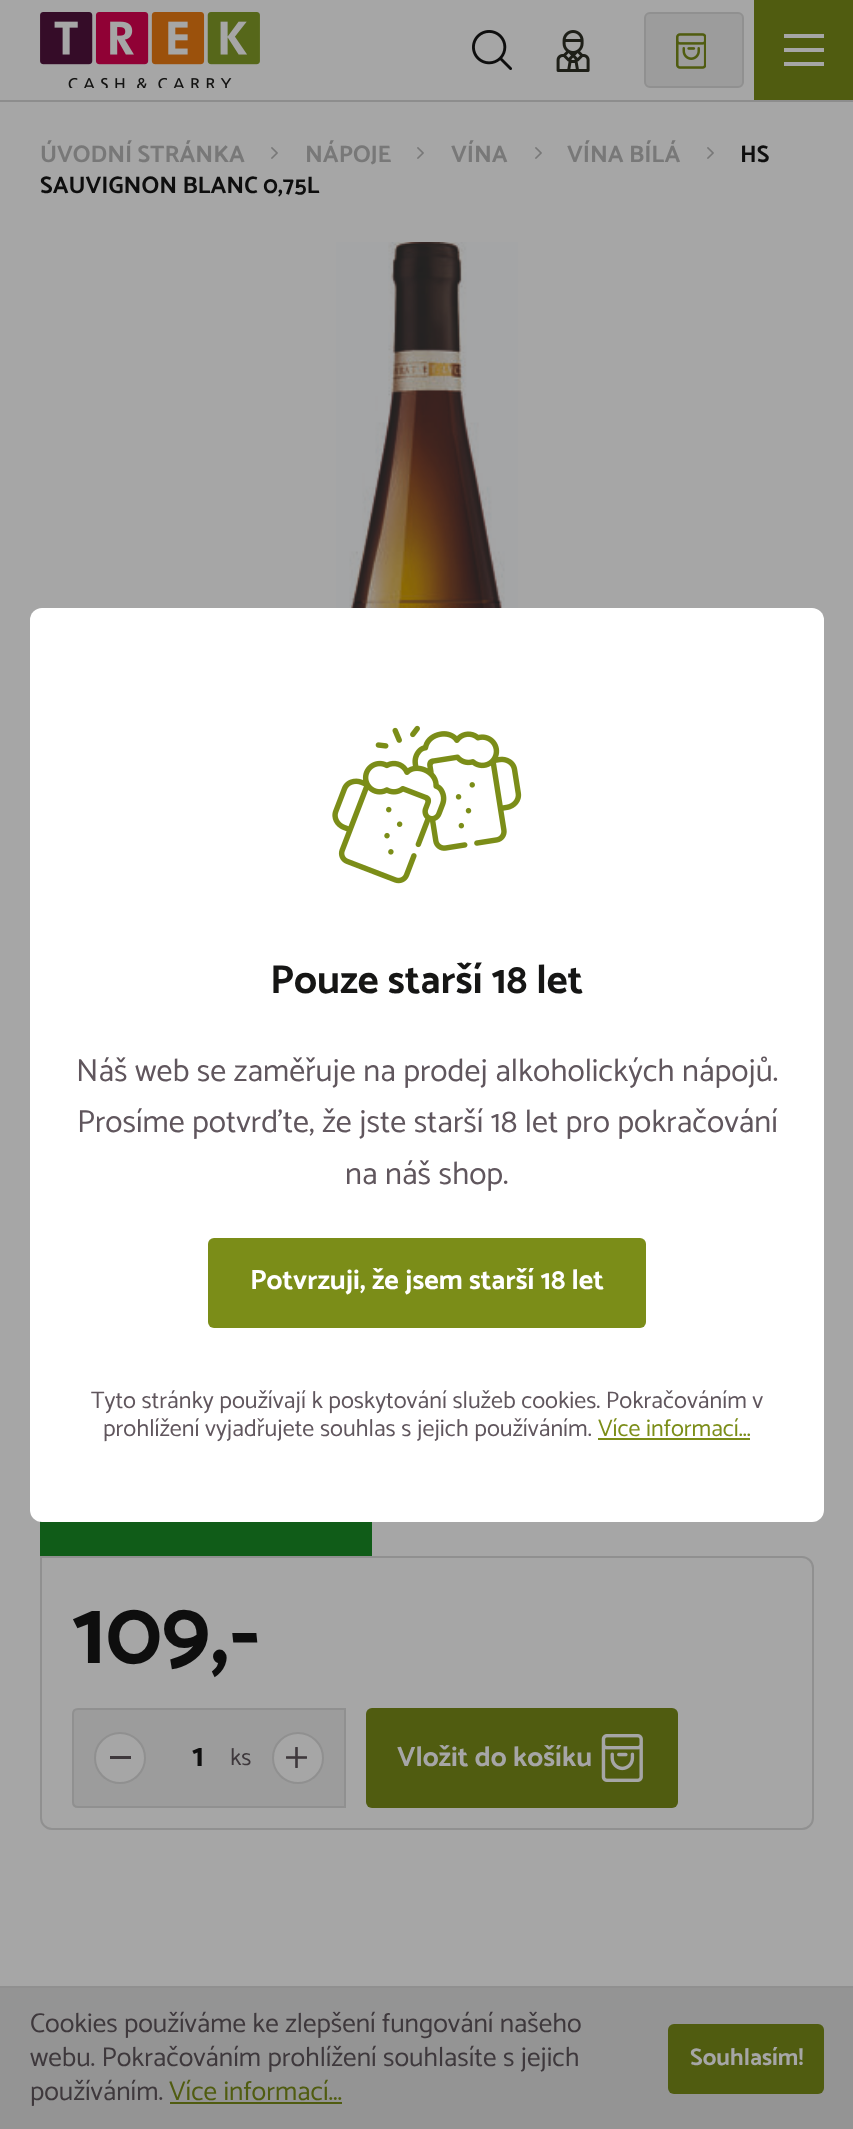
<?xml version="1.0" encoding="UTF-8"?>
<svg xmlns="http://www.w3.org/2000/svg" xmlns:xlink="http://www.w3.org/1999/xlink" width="853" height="2129">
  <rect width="100%" height="100%" fill="#a6a6a6" />
  <rect y="100" width="853" height="2" fill="#8d8d8d" />
  <image x="40" y="12" width="220" height="76" xlink:href="image1.png" />
  <image x="472" y="30" width="40" height="40" xlink:href="image2.png" />
  <image x="556" y="30" width="34" height="42" xlink:href="image3.png" />
  <rect x="645" y="13" width="98" height="74" rx="5" fill="#9c9c9c" stroke="#909090" stroke-width="2" />
  <image x="676" y="33" width="30" height="36" xlink:href="image4.png" />
  <rect x="754" width="99" height="100" fill="#505c10" />
  <rect x="784" y="34" width="40" height="4" fill="#a6a6a6" />
  <rect x="784" y="48" width="40" height="4" fill="#a6a6a6" />
  <rect x="784" y="62" width="40" height="4" fill="#a6a6a6" />
  <image x="271" y="147" width="7" height="12" xlink:href="image5.png" />
  <image x="417" y="147" width="7" height="12" xlink:href="image5.png" />
  <image x="535" y="147" width="7" height="12" xlink:href="image5.png" />
  <image x="707" y="147" width="7" height="12" xlink:href="image5.png" />
  <image x="336" y="242" width="182" height="366" xlink:href="image6.png" />
  <rect x="40" y="1521" width="332" height="35" fill="#105c18" />
  <path d="M 41 1557 h 761 c 6 0 11 5 11 11 v 250 c 0 6 -5 11 -11 11 h -750 c -6 0 -11 -5 -11 -11 z" fill="none" stroke="#909090" stroke-width="2" />
  <path d="M 78 1709 h 267 v 98 h -267 c -3 0 -5 -2 -5 -5 v -88 c 0 -3 2 -5 5 -5 z" fill="#9c9c9c" stroke="#909090" stroke-width="2" />
  <circle cx="120" cy="1758" r="25" fill="#a6a6a6" stroke="#909090" stroke-width="2" />
  <rect x="110" y="1756" width="21" height="3" fill="#3e383c" />
  <circle cx="298" cy="1758" r="25" fill="#a6a6a6" stroke="#909090" stroke-width="2" />
  <image x="286" y="1747" width="21" height="21" xlink:href="image7.png" />
  <rect x="366" y="1708" width="312" height="100" rx="6" fill="#505c10" />
  <image x="601" y="1734" width="42" height="48" xlink:href="image8.png" />
  <rect x="30" y="608" width="794" height="914" rx="12" fill="#ffffff" />
  <image x="332" y="725" width="190" height="159" xlink:href="image9.png" />
  <rect x="208" y="1238" width="438" height="90" rx="6" fill="#7b8d18" />
  <rect x="598" y="1438" width="152" height="2" fill="#7b8d18" />
  <rect y="1988" width="853" height="141" fill="#949494" />
  <rect y="1986" width="853" height="2" fill="#909090" />
  <rect x="170" y="2102" width="172" height="2" fill="#505c10" />
  <rect x="668" y="2024" width="156" height="70" rx="6" fill="#505c10" />
  <text x="40" y="162" style="font-family: Catamaran; font-size: 24px; font-weight: bold; fill: #787878">ÚVODNÍ STRÁNKA</text>
  <text x="305" y="162" style="font-family: Catamaran; font-size: 24px; font-weight: bold; fill: #787878">NÁPOJE</text>
  <text x="451" y="162" style="font-family: Catamaran; font-size: 24px; font-weight: bold; fill: #787878">VÍNA</text>
  <text x="567" y="162" style="font-family: Catamaran; font-size: 24px; font-weight: bold; fill: #787878">VÍNA BÍLÁ</text>
  <text x="740" y="162" style="font-family: Catamaran; font-size: 24px; font-weight: bold; fill: #0e0e0e">HS</text>
  <text x="40" y="193" style="font-family: Catamaran; font-size: 24px; font-weight: bold; fill: #0e0e0e">SAUVIGNON BLANC 0,75L</text>
  <text x="72" y="1663" style="font-family: Catamaran; font-size: 92px; font-weight: bold; fill: #0e0e0e">109,-</text>
  <text x="192" y="1766" style="font-family: Catamaran; font-size: 32px; font-weight: bold; fill: #0e0e0e">1</text>
  <text x="230" y="1765" style="font-family: Catamaran; font-size: 24px; fill: #3e383c">ks</text>
  <text x="397" y="1766" style="font-family: Catamaran; font-size: 28px; font-weight: bold; fill: #a6a6a6">Vložit do košíku</text>
  <text x="270" y="993" style="font-family: Catamaran; font-size: 40.5px; font-weight: bold; fill: #161615">Pouze starší 18 let</text>
  <text x="76" y="1081" style="font-family: Catamaran; font-size: 32px; fill: #60565d">Náš web se zaměřuje na prodej alkoholických nápojů.</text>
  <text x="77" y="1132" style="font-family: Catamaran; font-size: 32px; fill: #60565d">Prosíme potvrďte, že jste starší 18 let pro pokračování</text>
  <text x="345" y="1184" style="font-family: Catamaran; font-size: 32px; fill: #60565d">na náš shop.</text>
  <text x="250" y="1289" style="font-family: Catamaran; font-size: 28px; font-weight: bold; fill: #ffffff">Potvrzuji, že jsem starší 18 let</text>
  <text x="91" y="1408" style="font-family: Catamaran; font-size: 24px; fill: #60565d">Tyto stránky používají k poskytování služeb cookies. Pokračováním v</text>
  <text x="103" y="1436" style="font-family: Catamaran; font-size: 24px; fill: #60565d">prohlížení vyjadřujete souhlas s jejich používáním.</text>
  <text x="598" y="1436" style="font-family: Catamaran; font-size: 24px; fill: #7b8d18">Více informací...</text>
  <text x="30" y="2032" style="font-family: Catamaran; font-size: 27.2px; fill: #3e383c">Cookies používáme ke zlepšení fungování našeho</text>
  <text x="30" y="2066" style="font-family: Catamaran; font-size: 27.2px; fill: #3e383c">webu. Pokračováním prohlížení souhlasíte s jejich</text>
  <text x="30" y="2100" style="font-family: Catamaran; font-size: 27.2px; fill: #3e383c">používáním.</text>
  <text x="169" y="2100" style="font-family: Catamaran; font-size: 27.2px; fill: #505c10">Více informací...</text>
  <text x="690" y="2065" style="font-family: Catamaran; font-size: 24px; font-weight: bold; fill: #a6a6a6">Souhlasím!</text>
</svg>
